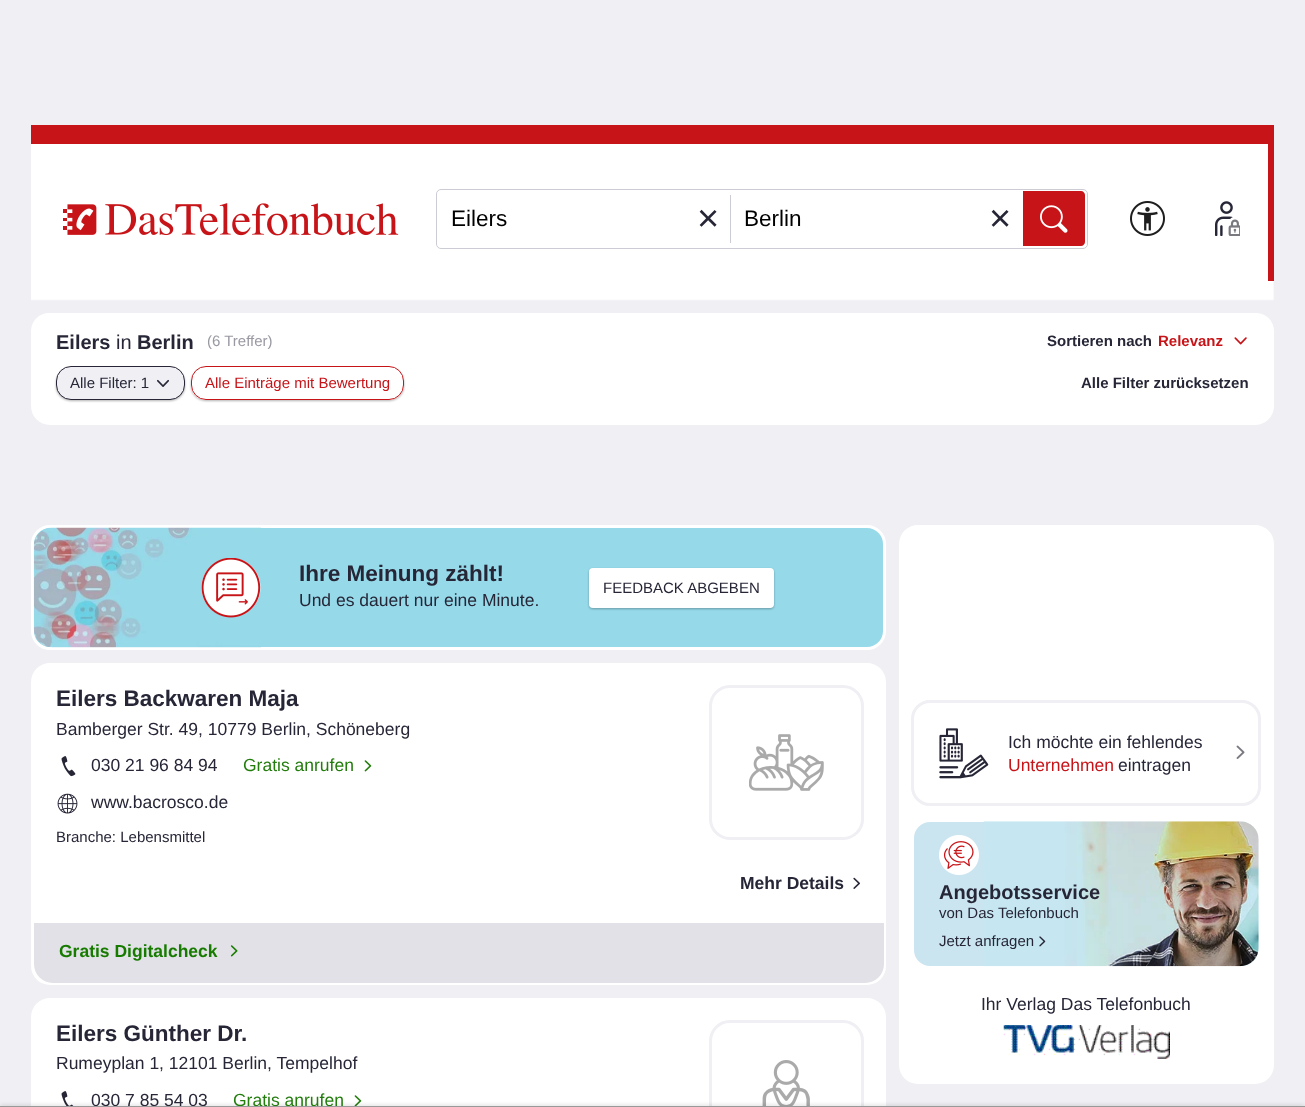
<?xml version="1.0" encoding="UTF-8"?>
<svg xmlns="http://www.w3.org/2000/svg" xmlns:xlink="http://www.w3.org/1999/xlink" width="1305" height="1107">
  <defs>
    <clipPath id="clip1"><path d="M 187 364 h 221 v 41 h -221 z m 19 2 h 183 c 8.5 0 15 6.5 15 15 v 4 c 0 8.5 -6.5 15 -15 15 h -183 c -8.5 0 -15 -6.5 -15 -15 v -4 c 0 -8.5 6.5 -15 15 -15 z" clip-rule="evenodd" /></clipPath>
  </defs>
  <rect width="100%" height="100%" fill="#efeff4" />
  <image x="31" y="144" width="1243" height="157" xlink:href="image1.png" />
  <rect x="31" y="125" width="1243" height="19" fill="#c71418" />
  <image x="63" y="203" width="336" height="33" xlink:href="image2.png" />
  <rect x="436.5" y="189.5" width="651" height="59" rx="4.5" fill="none" stroke="#ccccd4" />
  <rect x="730" y="195" width="1" height="48" fill="#ccccd4" />
  <path d="M 1023 191 h 58 c 2 0 4 2 4 4 v 47 c 0 2 -2 4 -4 4 h -58 z" fill="#c71418" />
  <image x="1040" y="205" width="28" height="28" xlink:href="image3.png" />
  <image x="1130" y="201" width="35" height="35" xlink:href="image4.png" />
  <image x="1215" y="201" width="25" height="35" xlink:href="image5.png" />
  <rect x="1268" y="141" width="6" height="140" fill="#c71418" />
  <rect x="31" y="331" width="1243" height="75" fill="#ffffff" />
  <path d="M 49 313 h 1207 c 10 0 18 8 18 18 h -1243 c 0 -10 8 -18 18 -18 z" fill="#ffffff" />
  <image x="1234" y="337" width="13" height="8" xlink:href="image6.png" />
  <rect x="56" y="368" width="129" height="33" rx="15" fill="#000000" fill-opacity="0.3" filter="blur(1px)" />
  <rect x="56.5" y="366.5" width="128" height="33" rx="14.5" fill="#efeff4" stroke="#262637" />
  <image x="157" y="379" width="12" height="8" xlink:href="image7.png" />
  <g clip-path="url(#clip1)">
    <rect x="191" y="368" width="213" height="33" rx="15" fill="#000000" fill-opacity="0.3" filter="blur(1px)" />
  </g>
  <rect x="191.5" y="366.5" width="212" height="33" rx="14.5" fill="none" stroke="#c71418" />
  <path d="M 31 406 h 1243 c 0 10.5 -8.5 19 -19 19 h -1205 c -10.5 0 -19 -8.5 -19 -19 z" fill="#ffffff" />
  <rect x="32.5" y="526.5" width="852" height="122" rx="17.5" fill="#96daea" stroke="#ffffff" stroke-width="3" />
  <image x="33" y="527" width="228" height="121" xlink:href="image8.png" />
  <image x="201" y="558" width="60" height="60" xlink:href="image9.png" />
  <rect x="589" y="569" width="185" height="40" rx="4" fill="#000000" fill-opacity="0.3" filter="blur(1px)" />
  <rect x="589" y="568" width="185" height="40" rx="4" fill="#ffffff" />
  <rect x="31" y="663" width="855" height="322" rx="19" fill="#ffffff" />
  <image x="61" y="756" width="15" height="21" xlink:href="image10.png" />
  <image x="364" y="760" width="8" height="12" xlink:href="image11.png" />
  <image x="57" y="793" width="21" height="21" xlink:href="image12.png" />
  <rect x="710.5" y="686.5" width="152" height="152" rx="19.5" fill="none" stroke="#efeff4" stroke-width="3" />
  <image x="749" y="734" width="75" height="57" xlink:href="image13.png" />
  <image x="853" y="877" width="7" height="12" xlink:href="image14.png" />
  <path d="M 34 923 h 850 v 41 c 0 10.5 -8.5 19 -19 19 h -812 c -10.5 0 -19 -8.5 -19 -19 z" fill="#e1e1e7" />
  <image x="230" y="945" width="8" height="12" xlink:href="image15.png" />
  <rect x="31" y="998" width="855" height="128" rx="19" fill="#ffffff" />
  <image x="61" y="1091" width="13" height="15" xlink:href="image16.png" />
  <image x="354" y="1095" width="8" height="11" xlink:href="image17.png" />
  <rect x="710.5" y="1021.5" width="152" height="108" rx="19.5" fill="none" stroke="#efeff4" stroke-width="3" />
  <image x="762" y="1060" width="48" height="46" xlink:href="image18.png" />
  <rect x="899" y="525" width="375" height="559" rx="19" fill="#ffffff" />
  <rect x="912.5" y="701.5" width="347" height="103" rx="17.5" fill="none" stroke="#efeff4" stroke-width="3" />
  <image x="939" y="728" width="50" height="51" xlink:href="image19.png" />
  <image x="1236" y="745" width="9" height="14" xlink:href="image20.png" />
  <rect x="912.5" y="820.5" width="347" height="147" rx="17.5" fill="#cbe5f0" stroke="#ffffff" stroke-width="3" />
  <image x="983" y="821" width="276" height="146" xlink:href="image21.png" />
  <image x="939" y="835" width="40" height="40" xlink:href="image22.png" />
  <image x="1039" y="936" width="7" height="11" xlink:href="image23.png" />
  <image x="1003" y="1025" width="167" height="34" xlink:href="image24.png" />
  <rect y="1106" width="1305" height="1" fill="#000000" fill-opacity="0.4" filter="blur(2px)" />
  <text x="451" y="226" style="font-family: Liberation Sans; font-size: 22.5px; fill: #000000">Eilers</text>
  <text x="697" y="231" style="font-family: Liberation Sans; font-size: 38px; fill: #262637">×</text>
  <text x="744" y="226" style="font-family: Liberation Sans; font-size: 22.5px; fill: #000000">Berlin</text>
  <text x="989" y="231" style="font-family: Liberation Sans; font-size: 38px; fill: #262637">×</text>
  <text x="56" y="349" style="font-family: Liberation Sans; font-size: 20px; font-weight: bold; fill: #262637">Eilers</text>
  <text x="116" y="349" style="font-family: Liberation Sans; font-size: 20px; fill: #262637">in</text>
  <text x="137" y="349" style="font-family: Liberation Sans; font-size: 20px; font-weight: bold; fill: #262637">Berlin</text>
  <text x="207" y="346" style="font-family: Liberation Sans; font-size: 15px; fill: #9999a3">(6 Treffer)</text>
  <text x="1047" y="346" style="font-family: Liberation Sans; font-size: 15px; font-weight: bold; fill: #262637">Sortieren nach</text>
  <text x="1158" y="346" style="font-family: Liberation Sans; font-size: 15px; font-weight: bold; fill: #c71418">Relevanz</text>
  <text x="70" y="388" style="font-family: Liberation Sans; font-size: 15px; fill: #262637">Alle Filter: 1</text>
  <text x="205" y="388" style="font-family: Liberation Sans; font-size: 15px; fill: #c71418">Alle Einträge mit Bewertung</text>
  <text x="1081" y="388" style="font-family: Liberation Sans; font-size: 15px; font-weight: bold; fill: #262637">Alle Filter zurücksetzen</text>
  <text x="299" y="581" style="font-family: Liberation Sans; font-size: 22.5px; font-weight: bold; fill: #262637">Ihre Meinung zählt!</text>
  <text x="299" y="606" style="font-family: Liberation Sans; font-size: 17.5px; fill: #262637">Und es dauert nur eine Minute.</text>
  <text x="603" y="593" style="font-family: Liberation Sans; font-size: 15px; fill: #262637">FEEDBACK ABGEBEN</text>
  <text x="56" y="706" style="font-family: Liberation Sans; font-size: 22.5px; font-weight: bold; fill: #262637">Eilers Backwaren Maja</text>
  <text x="56" y="735" style="font-family: Liberation Sans; font-size: 17.5px; fill: #262637">Bamberger Str. 49, 10779 Berlin, Schöneberg</text>
  <text x="91" y="771" style="font-family: Liberation Sans; font-size: 17.5px; fill: #262637">030 21 96 84 94</text>
  <text x="243" y="771" style="font-family: Liberation Sans; font-size: 17.5px; fill: #237d0d">Gratis anrufen</text>
  <text x="91" y="808" style="font-family: Liberation Sans; font-size: 17.5px; fill: #262637">www.bacrosco.de</text>
  <text x="56" y="842" style="font-family: Liberation Sans; font-size: 15px; fill: #262637">Branche: Lebensmittel</text>
  <text x="740" y="889" style="font-family: Liberation Sans; font-size: 17.5px; font-weight: bold; fill: #262637">Mehr Details</text>
  <text x="59" y="957" style="font-family: Liberation Sans; font-size: 17.5px; font-weight: bold; fill: #177b00">Gratis Digitalcheck</text>
  <text x="56" y="1041" style="font-family: Liberation Sans; font-size: 22.5px; font-weight: bold; fill: #262637">Eilers Günther Dr.</text>
  <text x="56" y="1069" style="font-family: Liberation Sans; font-size: 17.5px; fill: #262637">Rumeyplan 1, 12101 Berlin, Tempelhof</text>
  <text x="91" y="1106" style="font-family: Liberation Sans; font-size: 17.5px; fill: #262637">030 7 85 54 03</text>
  <text x="233" y="1106" style="font-family: Liberation Sans; font-size: 17.5px; fill: #237d0d">Gratis anrufen</text>
  <text x="1008" y="748" style="font-family: Liberation Sans; font-size: 17.5px; fill: #262637">Ich möchte ein fehlendes</text>
  <text x="1008" y="771" style="font-family: Liberation Sans; font-size: 17.5px; fill: #c71418">Unternehmen</text>
  <text x="1118" y="771" style="font-family: Liberation Sans; font-size: 17.5px; fill: #262637">eintragen</text>
  <text x="939" y="899" style="font-family: Liberation Sans; font-size: 20px; font-weight: bold; fill: #262637">Angebotsservice</text>
  <text x="939" y="918" style="font-family: Liberation Sans; font-size: 15px; fill: #262637">von Das Telefonbuch</text>
  <text x="939" y="946" style="font-family: Liberation Sans; font-size: 15px; fill: #262637">Jetzt anfragen</text>
  <text x="981" y="1010" style="font-family: Liberation Sans; font-size: 17.5px; fill: #262637">Ihr Verlag Das Telefonbuch</text>
  <rect y="1106" width="1305" height="1" fill="#999999" />
</svg>
